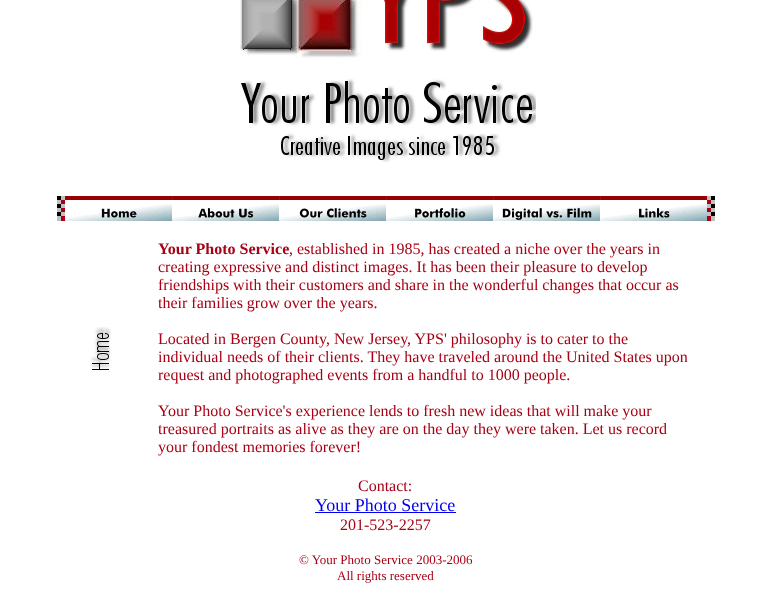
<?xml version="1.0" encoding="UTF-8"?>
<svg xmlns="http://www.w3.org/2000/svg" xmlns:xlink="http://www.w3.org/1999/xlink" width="771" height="610">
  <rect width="100%" height="100%" fill="#ffffff" />
  <image x="240" y="0" width="293" height="58" xlink:href="image1.png" />
  <image x="241" y="78" width="295" height="85" xlink:href="image2.png" />
  <image x="57" y="196" width="8" height="25" xlink:href="image3.png" />
  <image x="65" y="196" width="107" height="25" xlink:href="image4.png" />
  <image x="172" y="196" width="107" height="25" xlink:href="image5.png" />
  <image x="279" y="196" width="107" height="25" xlink:href="image6.png" />
  <image x="386" y="196" width="107" height="25" xlink:href="image7.png" />
  <image x="493" y="196" width="107" height="25" xlink:href="image8.png" />
  <image x="600" y="196" width="107" height="25" xlink:href="image9.png" />
  <image x="707" y="196" width="8" height="25" xlink:href="image10.png" />
  <image x="90" y="327" width="22" height="43" xlink:href="image11.png" />
  <rect x="315" y="512" width="141" height="1" fill="#0000ee" />
  <text x="158" y="254" style="font-family: Liberation Serif; font-size: 16px; font-weight: bold; fill: #a80014">Your Photo Service</text>
  <text x="289" y="254" style="font-family: Liberation Serif; font-size: 16px; fill: #a80014">, established in 1985, has created a niche over the years in</text>
  <text x="158" y="272" style="font-family: Liberation Serif; font-size: 16px; fill: #a80014">creating expressive and distinct images. It has been their pleasure to develop</text>
  <text x="158" y="290" style="font-family: Liberation Serif; font-size: 16px; fill: #a80014">friendships with their customers and share in the wonderful changes that occur as</text>
  <text x="158" y="308" style="font-family: Liberation Serif; font-size: 16px; fill: #a80014">their families grow over the years.</text>
  <text x="158" y="344" style="font-family: Liberation Serif; font-size: 16px; fill: #a80014">Located in Bergen County, New Jersey, YPS' philosophy is to cater to the</text>
  <text x="158" y="362" style="font-family: Liberation Serif; font-size: 16px; fill: #a80014">individual needs of their clients. They have traveled around the United States upon</text>
  <text x="158" y="380" style="font-family: Liberation Serif; font-size: 16px; fill: #a80014">request and photographed events from a handful to 1000 people.</text>
  <text x="158" y="416" style="font-family: Liberation Serif; font-size: 16px; fill: #a80014">Your Photo Service's experience lends to fresh new ideas that will make your</text>
  <text x="158" y="434" style="font-family: Liberation Serif; font-size: 16px; fill: #a80014">treasured portraits as alive as they are on the day they were taken. Let us record</text>
  <text x="158" y="452" style="font-family: Liberation Serif; font-size: 16px; fill: #a80014">your fondest memories forever!</text>
  <text x="358" y="491" style="font-family: Liberation Serif; font-size: 16px; fill: #a80014">Contact:</text>
  <text x="315" y="511" style="font-family: Liberation Serif; font-size: 18px; fill: #0000ee">Your Photo Service</text>
  <text x="340" y="530" style="font-family: Liberation Serif; font-size: 16px; fill: #a80014">201-523-2257</text>
  <text x="299" y="564" style="font-family: Liberation Serif; font-size: 13px; fill: #a80014">© Your Photo Service 2003-2006</text>
  <text x="337" y="580" style="font-family: Liberation Serif; font-size: 13px; fill: #a80014">All rights reserved</text>
</svg>
